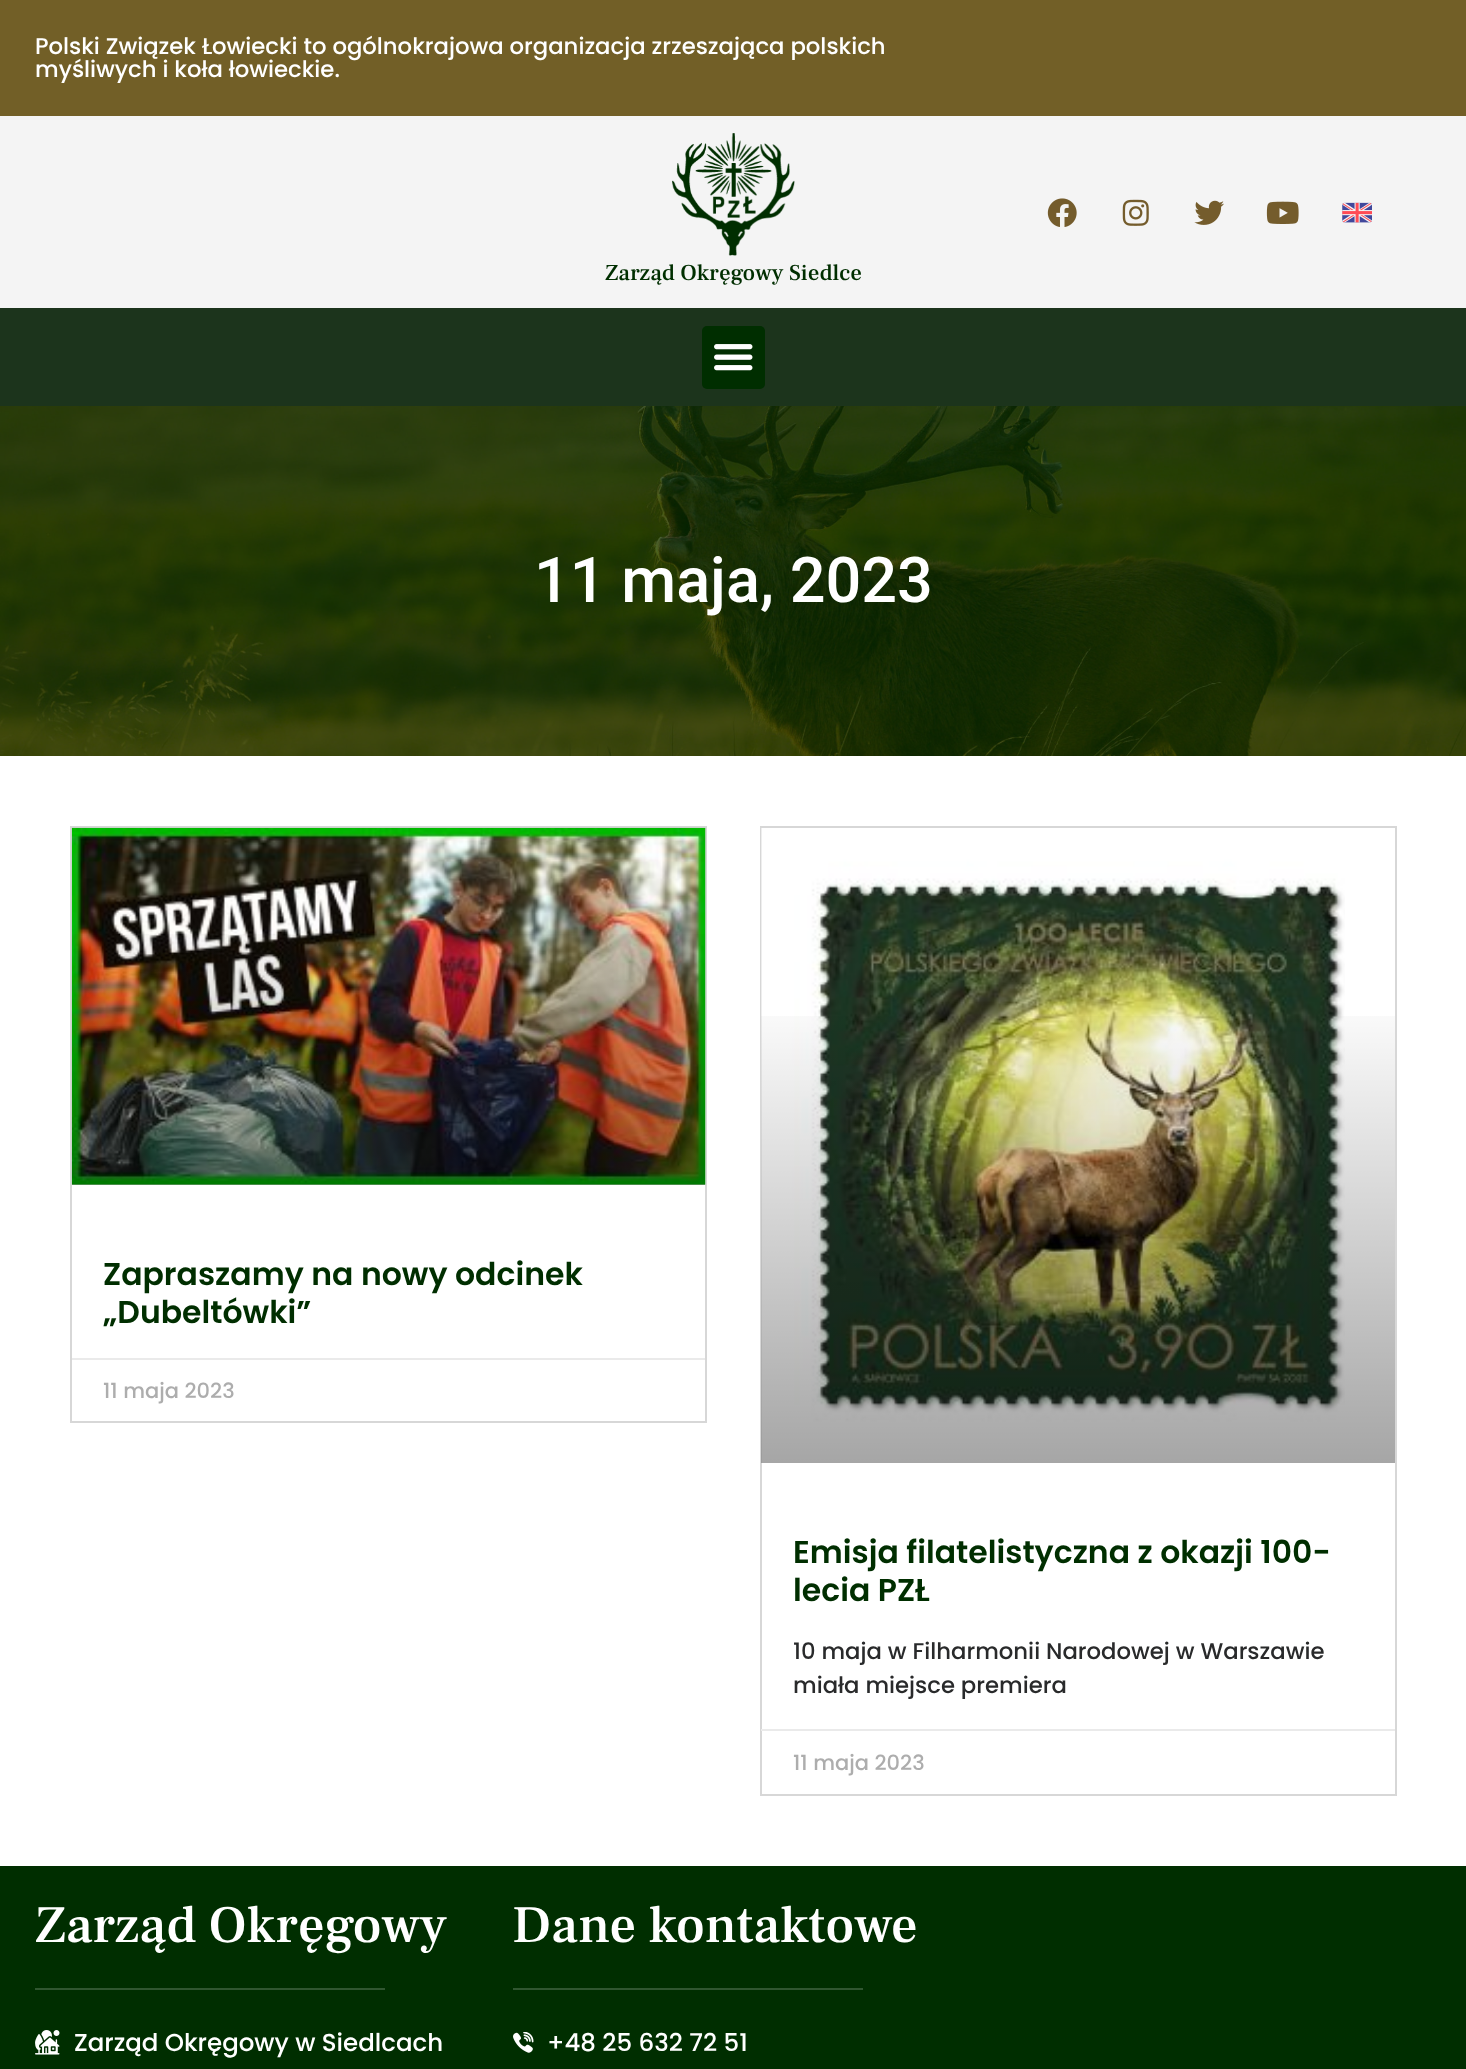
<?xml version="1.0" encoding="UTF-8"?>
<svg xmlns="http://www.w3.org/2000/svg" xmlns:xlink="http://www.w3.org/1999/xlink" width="1466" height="2069">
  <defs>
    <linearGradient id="g1" gradientUnits="userSpaceOnUse" x1="389" y1="1185" x2="389" y2="828"><stop offset="0" stop-color="#000000" stop-opacity="0.35" /><stop offset="0.75" stop-color="#000000" stop-opacity="0" /></linearGradient>
    <linearGradient id="g2" gradientUnits="userSpaceOnUse" x1="1078" y1="1463" x2="1078" y2="828"><stop offset="0" stop-color="#000000" stop-opacity="0.35" /><stop offset="0.75" stop-color="#000000" stop-opacity="0" /></linearGradient>
  </defs>
  <rect width="100%" height="100%" fill="#ffffff" />
  <rect width="1466" height="116" fill="#725f27" />
  <rect y="116" width="1466" height="192" fill="#f4f4f4" />
  <image x="1047" y="198" width="30" height="29" xlink:href="image1.png" />
  <image x="1122" y="199" width="27" height="27" xlink:href="image2.png" />
  <image x="1194" y="200" width="30" height="25" xlink:href="image3.png" />
  <image x="1266" y="201" width="33" height="23" xlink:href="image4.png" />
  <image x="1342" y="202" width="30" height="21" xlink:href="image5.png" />
  <image x="672" y="133" width="123" height="123" xlink:href="image6.png" />
  <rect y="308" width="1466" height="98" fill="#1c341c" />
  <rect x="702" y="326" width="63" height="63" rx="5" fill="#002e00" />
  <image x="714" y="344" width="39" height="27" xlink:href="image7.png" />
  <image x="0" y="406" width="1466" height="350" xlink:href="image8.png" />
  <rect x="71" y="827" width="635" height="595" fill="none" stroke="#d7d7d7" stroke-width="2" />
  <image x="71" y="827" width="635" height="358" xlink:href="image9.png" />
  <rect x="72" y="934" width="633" height="251" fill="url(#g1)" />
  <rect x="72" y="1358" width="633" height="2" fill="#eaeaea" />
  <rect x="761" y="827" width="635" height="968" fill="none" stroke="#d7d7d7" stroke-width="2" />
  <image x="761" y="828" width="584" height="635" xlink:href="image10.png" />
  <rect x="761" y="1016" width="634" height="447" fill="url(#g2)" />
  <rect x="761" y="1729" width="634" height="2" fill="#eaeaea" />
  <rect y="1866" width="1466" height="203" fill="#002e00" />
  <rect x="35" y="1988" width="350" height="2" fill="#305630" />
  <image x="35" y="2030" width="25" height="25" xlink:href="image11.png" />
  <rect x="513" y="1988" width="350" height="2" fill="#305630" />
  <image x="513" y="2032" width="21" height="21" xlink:href="image12.png" />
  <text x="35" y="54" style="font-family: Poppins; font-size: 22.75px; font-weight: 500; fill: #ffffff">Polski Związek Łowiecki to ogólnokrajowa organizacja zrzeszająca polskich</text>
  <text x="35" y="77" style="font-family: Poppins; font-size: 22.75px; font-weight: 500; fill: #ffffff">myśliwych i koła łowieckie.</text>
  <text x="605" y="280" style="font-family: Frank Ruhl Libre; font-size: 22.75px; font-weight: 500; fill: #002e00">Zarząd Okręgowy Siedlce</text>
  <text x="534" y="602" style="font-family: Roboto; font-size: 63px; font-weight: 500; fill: #ffffff">11 maja, 2023</text>
  <text x="103" y="1285" style="font-family: Poppins; font-size: 31.5px; font-weight: 600; fill: #002e00">Zapraszamy na nowy odcinek</text>
  <text x="103" y="1323" style="font-family: Poppins; font-size: 31.5px; font-weight: 600; fill: #002e00">„Dubeltówki”</text>
  <text x="103" y="1398" style="font-family: Poppins; font-size: 21px; font-weight: 500; fill: #adadad">11 maja 2023</text>
  <text x="793" y="1563" style="font-family: Poppins; font-size: 31.5px; font-weight: 600; fill: #002e00">Emisja filatelistyczna z okazji 100-</text>
  <text x="793" y="1601" style="font-family: Poppins; font-size: 31.5px; font-weight: 600; fill: #002e00">lecia PZŁ</text>
  <text x="793" y="1659" style="font-family: Poppins; font-size: 22.75px; font-weight: 500; fill: #292a2b">10 maja w Filharmonii Narodowej w Warszawie</text>
  <text x="793" y="1693" style="font-family: Poppins; font-size: 22.75px; font-weight: 500; fill: #292a2b">miała miejsce premiera</text>
  <text x="793" y="1770" style="font-family: Poppins; font-size: 21px; font-weight: 500; fill: #adadad">11 maja 2023</text>
  <text x="35" y="1942" style="font-family: Frank Ruhl Libre; font-size: 52.5px; font-weight: 500; fill: #ffffff">Zarząd Okręgowy</text>
  <text x="74" y="2051" style="font-family: Poppins; font-size: 24.5px; font-weight: 500; fill: #ffffff">Zarząd Okręgowy w Siedlcach</text>
  <text x="512" y="1942" style="font-family: Frank Ruhl Libre; font-size: 52.5px; font-weight: 500; fill: #ffffff">Dane kontaktowe</text>
  <text x="547" y="2051" style="font-family: Poppins; font-size: 24.5px; font-weight: 500; fill: #ffffff">+48 25 632 72 51</text>
</svg>
